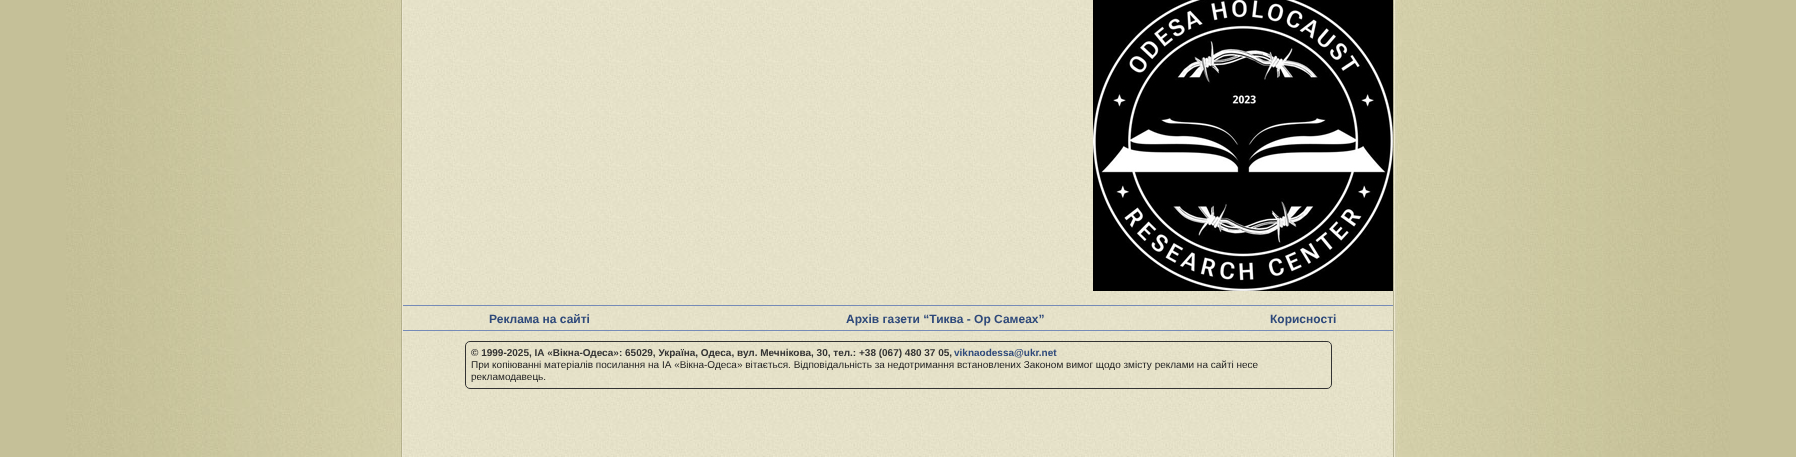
<?xml version="1.0" encoding="UTF-8"?>
<svg xmlns="http://www.w3.org/2000/svg" xmlns:xlink="http://www.w3.org/1999/xlink" width="1796" height="457">
  <rect width="100%" height="100%" fill="#c5c098" />
  <image x="66" y="0" width="1664" height="457" xlink:href="image1.png" />
  <image x="403" y="0" width="990" height="305" xlink:href="image2.png" />
  <image x="1093" y="0" width="300" height="291" xlink:href="image3.png" />
  <image x="403" y="306" width="990" height="151" xlink:href="image4.png" />
  <rect x="403" y="305" width="990" height="1" fill="#768bb7" />
  <rect x="403" y="330" width="990" height="1" fill="#768bb7" />
  <rect x="465.5" y="341.5" width="866" height="47" rx="4.5" fill="none" stroke="#333333" />
  <text x="489" y="323" style="font-family: Liberation Sans; font-size: 12px; font-weight: bold; fill: #2e497a">Реклама на сайті</text>
  <text x="846" y="323" style="font-family: Liberation Sans; font-size: 12px; font-weight: bold; fill: #2e497a">Архів газети “Тиква - Ор Самеах”</text>
  <text x="1270" y="323" style="font-family: Liberation Sans; font-size: 12px; font-weight: bold; fill: #2e497a">Корисності</text>
  <text x="471" y="356" style="font-family: Liberation Sans; font-size: 10px; font-weight: bold; fill: #333333">© 1999-2025, ІА «Вікна-Одеса»: 65029, Україна, Одеса, вул. Мечнікова, 30, тел.: +38 (067) 480 37 05,</text>
  <text x="954" y="356" style="font-family: Liberation Sans; font-size: 10px; font-weight: bold; fill: #2e497a">viknaodessa@ukr.net</text>
  <text x="471" y="368" style="font-family: Liberation Sans; font-size: 10px; fill: #222222">При копіюванні матеріалів посилання на ІА «Вікна-Одеса» вітається. Відповідальність за недотримання встановлених Законом вимог щодо змісту реклами на сайті несе</text>
  <text x="471" y="380" style="font-family: Liberation Sans; font-size: 10px; fill: #222222">рекламодавець.</text>
</svg>
